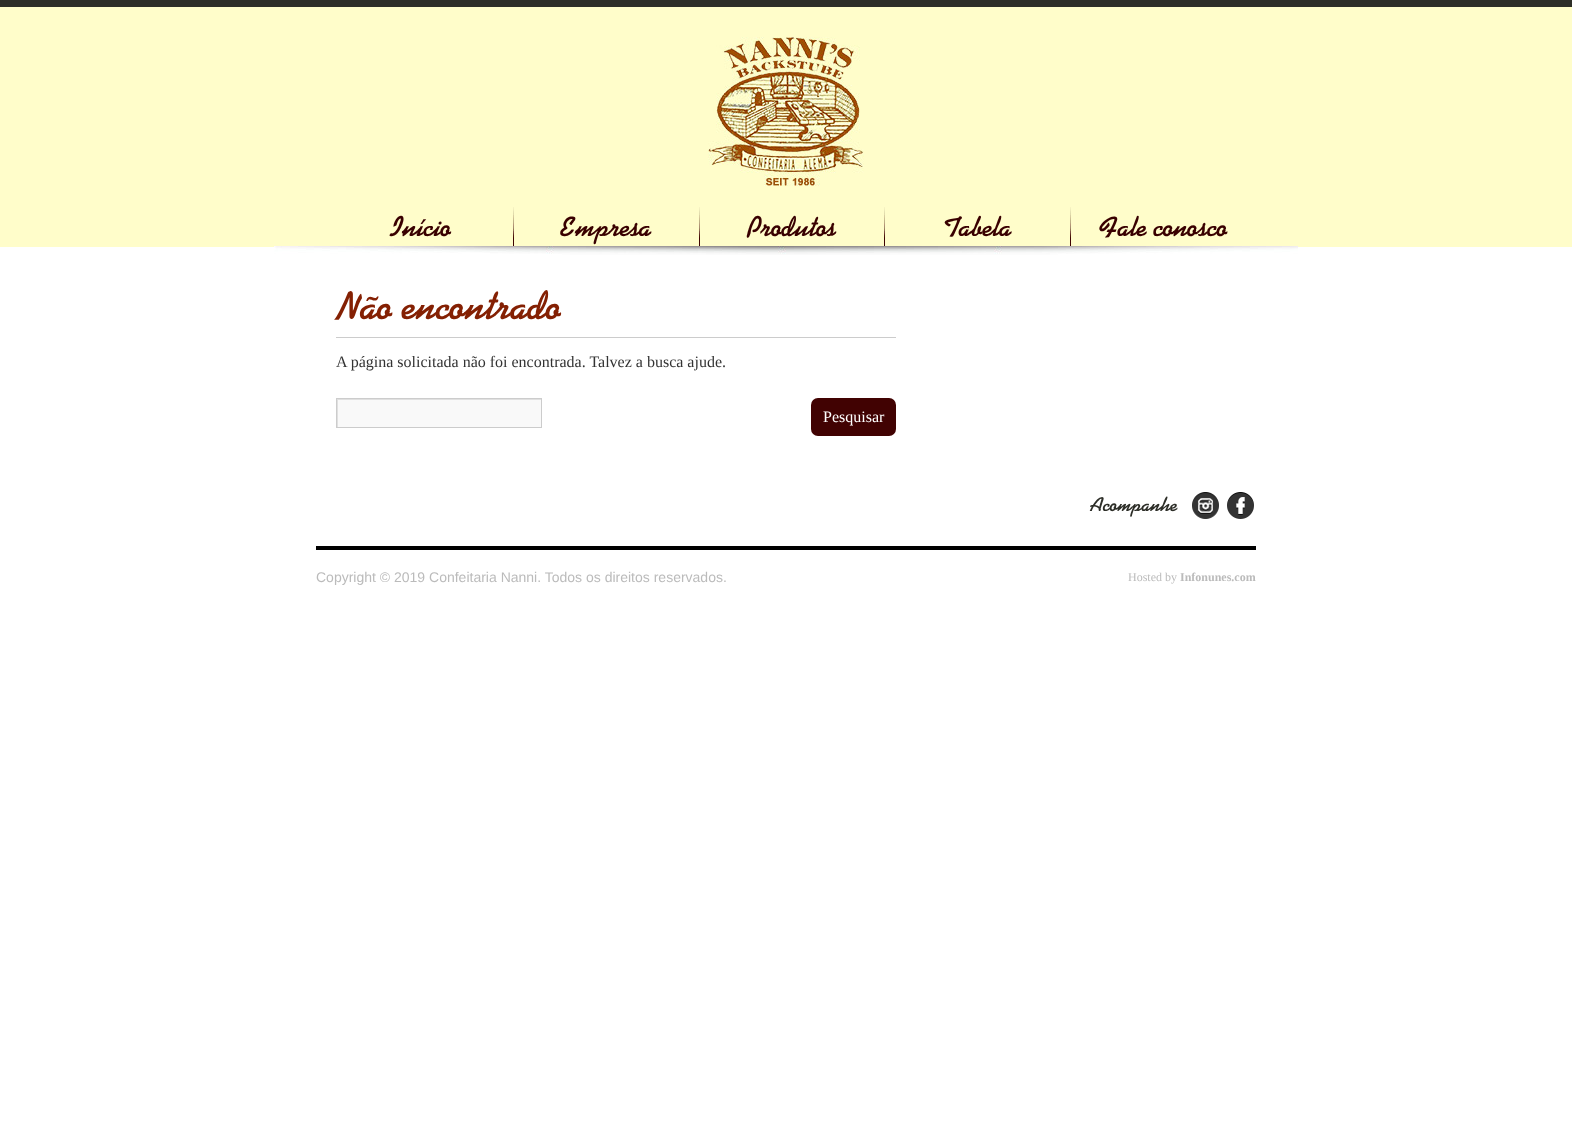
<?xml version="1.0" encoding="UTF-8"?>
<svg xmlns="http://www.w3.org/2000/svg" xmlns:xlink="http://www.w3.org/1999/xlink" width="1572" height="1131">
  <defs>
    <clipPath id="clip1"><rect x="337" y="399" width="204" height="28" /></clipPath>
  </defs>
  <rect width="100%" height="100%" fill="#ffffff" />
  <rect y="7" width="1572" height="240" fill="#fffdca" />
  <rect width="1572" height="7" fill="#2d2e28" />
  <image x="708" y="37" width="156" height="149" xlink:href="image1.png" />
  <image x="513" y="207" width="1" height="39" xlink:href="image2.png" />
  <image x="699" y="207" width="1" height="39" xlink:href="image2.png" />
  <image x="884" y="207" width="1" height="39" xlink:href="image2.png" />
  <image x="1070" y="207" width="1" height="39" xlink:href="image2.png" />
  <image x="274" y="246" width="1024" height="9" xlink:href="image3.png" />
  <rect x="336" y="337" width="560" height="1" fill="#cccccc" />
  <rect x="338" y="400" width="203" height="27" fill="#f9f9f9" />
  <g clip-path="url(#clip1)">
    <path d="M 238 300 h 402 v 226 h -402 z m 100 100 h 204 v 28 h -204 z" fill="#e0e0e0" fill-rule="evenodd" />
  </g>
  <rect x="336.5" y="398.5" width="205" height="29" fill="none" stroke="#cccccc" />
  <rect x="811" y="398" width="85" height="38" rx="7" fill="#410202" />
  <image x="1192" y="492" width="27" height="27" xlink:href="image4.png" />
  <image x="1227" y="492" width="27" height="27" xlink:href="image5.png" />
  <rect x="316" y="546" width="940" height="4" fill="#000000" />
  <text x="390" y="236" style="font-family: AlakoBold; font-size: 28px; font-weight: bold; fill: #390000">Início</text>
  <text x="561" y="236" style="font-family: AlakoBold; font-size: 28px; font-weight: bold; fill: #390000">Empresa</text>
  <text x="747" y="236" style="font-family: AlakoBold; font-size: 28px; font-weight: bold; fill: #390000">Produtos</text>
  <text x="943" y="236" style="font-family: AlakoBold; font-size: 28px; font-weight: bold; fill: #390000">Tabela</text>
  <text x="1099" y="236" style="font-family: AlakoBold; font-size: 28px; font-weight: bold; fill: #390000">Fale conosco</text>
  <text x="336" y="319" style="font-family: AlakoBold; font-size: 40px; font-weight: bold; fill: #842003">Não encontrado</text>
  <text x="336" y="367" style="font-family: Liberation Serif; font-size: 16px; fill: #333333">A página solicitada não foi encontrada. Talvez a busca ajude.</text>
  <text x="823" y="422" style="font-family: Liberation Serif; font-size: 16px; fill: #ffffff">Pesquisar</text>
  <text x="1090" y="511" style="font-family: AlakoBold; font-size: 20px; font-weight: bold; fill: #2d2e28">Acompanhe</text>
  <text x="316" y="582" style="font-family: Liberation Sans; font-size: 14px; fill: #bbbbbb">Copyright © 2019 Confeitaria Nanni. Todos os direitos reservados.</text>
  <text x="1128" y="581" style="font-family: Liberation Serif; font-size: 12px; fill: #bbbbbb">Hosted by</text>
  <text x="1180" y="581" style="font-family: Liberation Serif; font-size: 12px; font-weight: bold; fill: #bbbbbb">Infonunes.com</text>
</svg>
